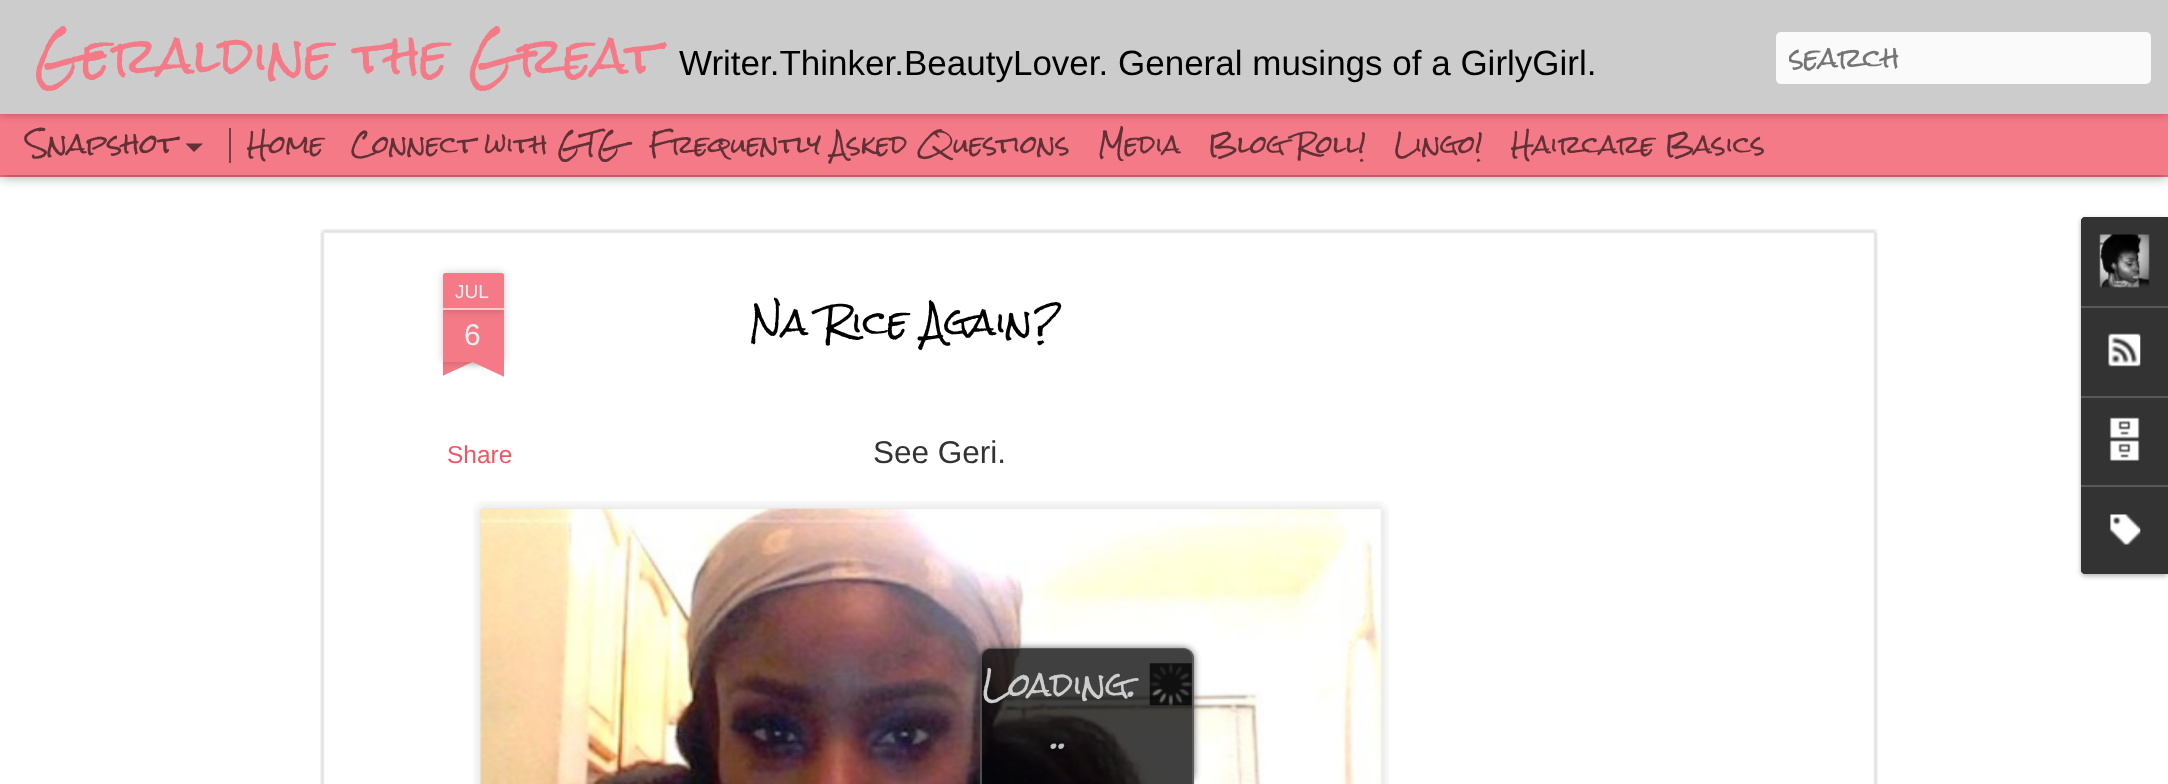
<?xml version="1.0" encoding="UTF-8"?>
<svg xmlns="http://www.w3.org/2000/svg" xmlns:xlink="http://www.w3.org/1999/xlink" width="2168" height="784">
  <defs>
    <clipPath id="clip1"><rect x="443" y="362" width="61" height="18" /></clipPath>
    <clipPath id="clip2"><rect x="443" y="362" width="61" height="18" /></clipPath>
    <clipPath id="clip3"><path d="M 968 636 h 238 v 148 h -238 z m 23 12 h 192 c 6 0 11 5 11 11 v 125 h -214 v -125 c 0 -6 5 -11 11 -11 z" clip-rule="evenodd" /></clipPath>
    <clipPath id="clip4"><rect x="1789" y="26" width="350" height="63" /></clipPath>
  </defs>
  <rect width="100%" height="100%" fill="#f37a86" />
  <rect y="177" width="2168" height="607" fill="#ffffff" />
  <rect y="114" width="2168" height="61" fill="#000000" fill-opacity="0.5" filter="blur(7px)" />
  <rect y="114" width="2168" height="61" fill="#f37a86" />
  <rect x="229" y="128" width="2" height="35" fill="#7a3d43" />
  <rect width="2168" height="114" fill="#000000" fill-opacity="0.3" filter="blur(4.5px)" />
  <rect width="2168" height="114" fill="#cccccc" />
  <rect x="1776" y="32" width="375" height="52" rx="5" fill="#fafafa" />
  <path d="M 185.5 143.5 h 17.5 l -9 8.5 z" fill="#613136" />
  <image x="320" y="229" width="1558" height="555" xlink:href="image1.png" />
  <rect x="443" y="310" width="61" height="52" fill="#000000" fill-opacity="0.2" filter="blur(4.5px)" />
  <rect x="443" y="310" width="61" height="52" fill="#f37a86" />
  <rect x="443" y="273" width="61" height="37" rx="2" fill="#000000" fill-opacity="0.2" filter="blur(4.5px)" />
  <path d="M 445 273 h 57 c 1 0 2 1 2 2 v 35 h -61 v -35 c 0 -1 1 -2 2 -2 z" fill="#f37a86" />
  <rect x="443" y="308" width="61" height="2" fill="#facacf" />
  <g clip-path="url(#clip1)">
    <rect x="427" y="345" width="88" height="17" fill="#000000" fill-opacity="0.2" filter="blur(4.5px)" />
  </g>
  <g clip-path="url(#clip2)">
    <path d="M 427 364 l 79 -37 l 7 16 l -79 37 z" fill="#f37a86" />
  </g>
  <g clip-path="url(#clip1)">
    <rect x="432" y="345" width="88" height="17" fill="#000000" fill-opacity="0.2" filter="blur(4.5px)" />
  </g>
  <g clip-path="url(#clip2)">
    <path d="M 439 327 l 79 37 l -7 16 l -79 -37 z" fill="#f37a86" />
  </g>
  <image x="473" y="501" width="916" height="283" xlink:href="image2.png" />
  <image x="480" y="508" width="902" height="276" xlink:href="image3.png" />
  <rect x="2081" y="219" width="87" height="357" rx="4" fill="#000000" fill-opacity="0.3" filter="blur(2.5px)" />
  <path d="M 2085 217 h 83 v 357 h -83 c -2 0 -4 -2 -4 -4 v -349 c 0 -2 2 -4 4 -4 z" fill="#333333" />
  <path d="M 2085 217 h 83 v 89 h -87 v -85 c 0 -2 2 -4 4 -4 z" fill="#333333" />
  <image x="2099" y="234" width="51" height="54" xlink:href="image4.png" />
  <rect x="2081" y="306" width="87" height="2" fill="#585858" />
  <image x="2108" y="333" width="33" height="34" xlink:href="image5.png" />
  <rect x="2081" y="396" width="87" height="2" fill="#585858" />
  <image x="2109" y="417" width="31" height="44" xlink:href="image6.png" />
  <path d="M 2081 485 h 87 v 89 h -83 c -2 0 -4 -2 -4 -4 z" fill="#333333" />
  <rect x="2081" y="485" width="87" height="2" fill="#585858" />
  <image x="2110" y="514" width="31" height="31" xlink:href="image7.png" />
  <g clip-path="url(#clip3)">
    <rect x="980" y="648" width="214" height="136" rx="11" fill="#333333" fill-opacity="0.75" filter="blur(3.5px)" />
  </g>
  <path d="M 991 648 h 192 c 6 0 11 5 11 11 v 125 h -214 v -125 c 0 -6 5 -11 11 -11 z" fill="#000000" fill-opacity="0.75" />
  <path d="M 990 648 h 193 c 6 0 11 4 11 10 v 126 h -214 v -126 c 0 -6 5 -10 10 -10 z m 0 1 h 193 c 5 0 9 4 9 9 v 126 h -210 v -126 c 0 -5 4 -9 8 -9 z" fill="#666666" fill-opacity="0.75" fill-rule="evenodd" />
  <image x="1149" y="663" width="43" height="43" xlink:href="image8.png" />
  <text x="35" y="75" style="font-family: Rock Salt; font-size: 49px; fill: #f37a86">Geraldine the Great</text>
  <text x="679" y="75" style="font-family: Liberation Sans; font-size: 35px; fill: #000000">Writer.Thinker.BeautyLover. General musings of a GirlyGirl.</text>
  <g clip-path="url(#clip4)">
    <text x="1789" y="68" style="font-family: Rock Salt; font-size: 26.25px; fill: #757575">search</text>
  </g>
  <text x="26" y="154" style="font-family: Rock Salt; font-size: 26.25px; fill: #613136">Snapshot</text>
  <text x="247" y="154" style="font-family: Rock Salt; font-size: 24.5px; fill: #613136">Home</text>
  <text x="351" y="154" style="font-family: Rock Salt; font-size: 24.5px; fill: #613136">Connect with GTG</text>
  <text x="649" y="154" style="font-family: Rock Salt; font-size: 24.5px; fill: #613136">Frequently Asked Questions</text>
  <text x="1098" y="154" style="font-family: Rock Salt; font-size: 24.5px; fill: #613136">Media</text>
  <text x="1208" y="154" style="font-family: Rock Salt; font-size: 24.5px; fill: #613136">Blog Roll!</text>
  <text x="1394" y="154" style="font-family: Rock Salt; font-size: 24.5px; fill: #613136">Lingo!</text>
  <text x="1511" y="154" style="font-family: Rock Salt; font-size: 24.5px; fill: #613136">Haircare Basics</text>
  <text x="455" y="298" style="font-family: Liberation Sans; font-size: 19px; fill: #eeeeee">JUL</text>
  <text x="464" y="345" style="font-family: Liberation Sans; font-size: 30px; fill: #eeeeee">6</text>
  <text x="750" y="336" style="font-family: Rock Salt; font-size: 35px; fill: #000000">Na Rice Again?</text>
  <text x="447" y="463" style="font-family: Liberation Sans; font-size: 24.5px; fill: #f45564">Share</text>
  <text x="873" y="463" style="font-family: Liberation Sans; font-size: 31.5px; fill: #333333">See Geri.</text>
  <text x="982" y="697" style="font-family: Rock Salt; font-size: 31.5px; fill: #cecdce">Loading</text>
  <text x="1129" y="697" style="font-family: Rock Salt; font-size: 31.5px; fill: #cecdce">.</text>
  <text x="1052" y="749" style="font-family: Rock Salt; font-size: 31.5px; fill: #c3c2c3">..</text>
</svg>
